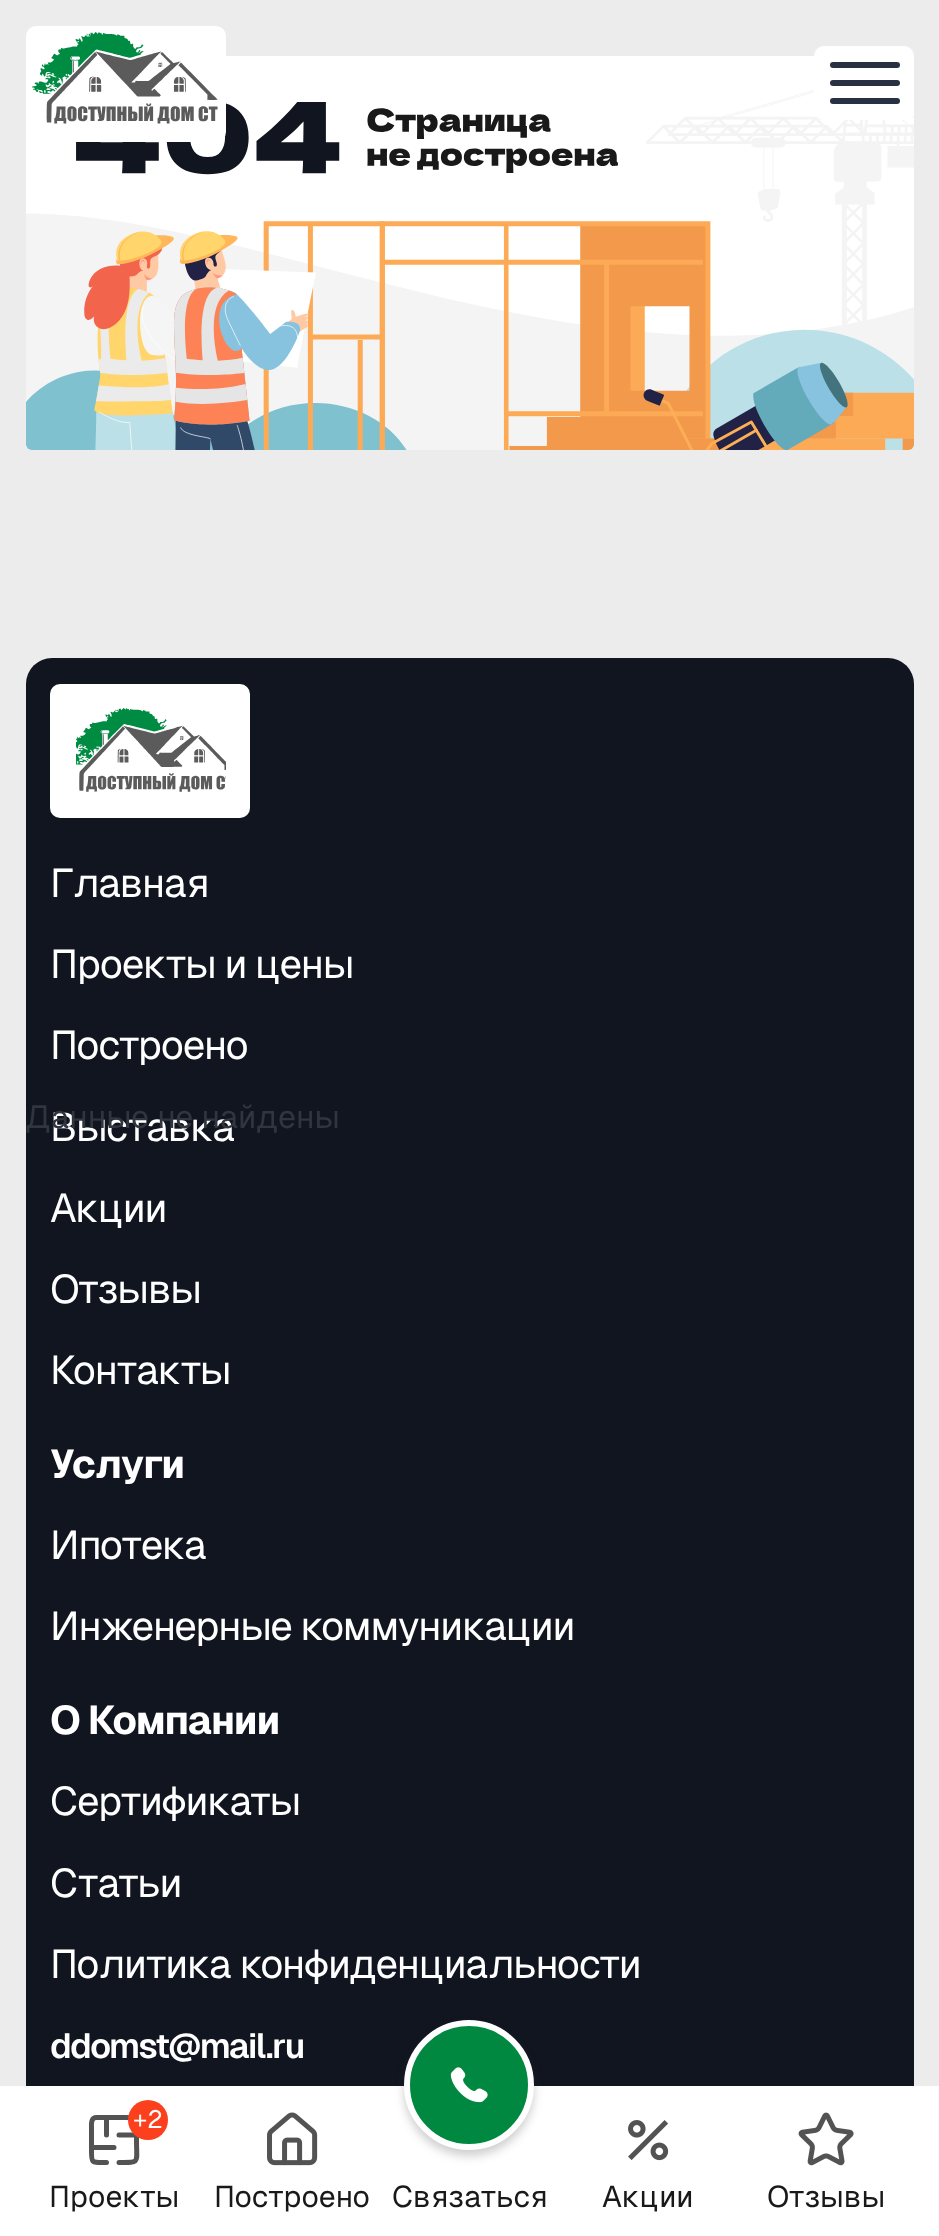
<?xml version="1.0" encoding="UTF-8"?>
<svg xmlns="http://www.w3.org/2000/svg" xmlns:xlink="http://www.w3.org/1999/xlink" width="939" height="2236">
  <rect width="100%" height="100%" fill="#ececec" />
  <image x="26" y="56" width="888" height="394" xlink:href="image1.png" />
  <rect x="26" y="658" width="888" height="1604" rx="26" fill="#111520" />
  <rect x="50" y="684" width="200" height="134" rx="10" fill="#ffffff" />
  <image x="76" y="708" width="150" height="84" xlink:href="image2.png" />
  <rect x="26" y="26" width="200" height="116" rx="10" fill="#ffffff" />
  <image x="32" y="32" width="186" height="92" xlink:href="image3.png" />
  <rect x="814" y="46" width="100" height="74" rx="10" fill="#ffffff" />
  <rect x="830" y="80" width="70" height="6" rx="3" fill="#283142" />
  <rect x="830" y="62" width="70" height="6" rx="3" fill="#283142" />
  <rect x="830" y="98" width="70" height="6" rx="3" fill="#283142" />
  <rect y="2086" width="939" height="150" fill="#ffffff" />
  <path d="M 106.5 2162.5 c -16.5 0 -15 1.5 -15 -16.5 v -17.5 c 0 -4 -1 -11 5 -11 h 29.5 c 10.5 0 10.5 0.5 10.5 11 v 11.5 c 0 24 4 22.5 -17.5 22.5 m -12.5 -45 v 17.5 m 30 0 h -17.5 m -27.5 12.5 h 22.5" fill="none" stroke="#535353" stroke-width="5" stroke-linecap="round" stroke-linejoin="round" />
  <circle cx="148" cy="2120" r="20" fill="#fc3f1d" />
  <image x="267" y="2112" width="51" height="54" xlink:href="image4.png" />
  <rect x="404" y="2026" width="130" height="130" rx="65" fill="#414141" fill-opacity="0.25" filter="blur(5px)" />
  <circle cx="469" cy="2085" r="62" fill="#008840" stroke="#ffffff" stroke-width="6" />
  <image x="450" y="2067" width="38" height="36" xlink:href="image5.png" />
  <image x="628" y="2120" width="41" height="41" xlink:href="image6.png" />
  <image x="798" y="2112" width="56" height="54" xlink:href="image7.png" />
  <text x="50" y="897" style="font-family: Geist; font-size: 40.1px; letter-spacing: -1.2px; fill: #ffffff">Главная</text>
  <text x="50" y="978" style="font-family: Geist; font-size: 40.1px; letter-spacing: -1.2px; fill: #ffffff">Проекты и цены</text>
  <text x="50" y="1059" style="font-family: Geist; font-size: 40.1px; letter-spacing: -1.2px; fill: #ffffff">Построено</text>
  <text x="50" y="1141" style="font-family: Geist; font-size: 40.1px; letter-spacing: -1.2px; fill: #ffffff">Выставка</text>
  <text x="50" y="1222" style="font-family: Geist; font-size: 40.1px; letter-spacing: -1.2px; fill: #ffffff">Акции</text>
  <text x="50" y="1303" style="font-family: Geist; font-size: 40.1px; letter-spacing: -1.2px; fill: #ffffff">Отзывы</text>
  <text x="50" y="1384" style="font-family: Geist; font-size: 40.1px; letter-spacing: -1.2px; fill: #ffffff">Контакты</text>
  <text x="50" y="1478" style="font-family: Geist; font-size: 40.1px; font-weight: bold; letter-spacing: -1.2px; fill: #ffffff">Услуги</text>
  <text x="50" y="1559" style="font-family: Geist; font-size: 40.1px; letter-spacing: -1.2px; fill: #ffffff">Ипотека</text>
  <text x="50" y="1640" style="font-family: Geist; font-size: 40.1px; letter-spacing: -1.2px; fill: #ffffff">Инженерные коммуникации</text>
  <text x="50" y="1734" style="font-family: Geist; font-size: 40.1px; font-weight: bold; letter-spacing: -1.2px; fill: #ffffff">О Компании</text>
  <text x="50" y="1815" style="font-family: Geist; font-size: 40.1px; letter-spacing: -1.2px; fill: #ffffff">Сертификаты</text>
  <text x="50" y="1897" style="font-family: Geist; font-size: 40.1px; letter-spacing: -1.2px; fill: #ffffff">Статьи</text>
  <text x="50" y="1978" style="font-family: Geist; font-size: 40.1px; letter-spacing: -1.2px; fill: #ffffff">Политика конфиденциальности</text>
  <text x="50" y="2058" style="font-family: Geist; font-size: 35px; font-weight: 600; letter-spacing: -1.75px; fill: #ffffff">ddomst@mail.ru</text>
  <text x="25" y="1128" style="font-family: Geist; font-size: 32px; fill: #31353e">Данные не найдены</text>
  <text x="133" y="2128" style="font-family: Geist; font-size: 25px; fill: #ffffff">+2</text>
  <text x="49" y="2207" style="font-family: Geist; font-size: 30px; fill: #191919">Проекты</text>
  <text x="214" y="2207" style="font-family: Geist; font-size: 30px; fill: #191919">Построено</text>
  <text x="392" y="2207" style="font-family: Geist; font-size: 30px; fill: #191919">Связаться</text>
  <text x="602" y="2207" style="font-family: Geist; font-size: 30px; fill: #191919">Акции</text>
  <text x="767" y="2207" style="font-family: Geist; font-size: 30px; fill: #191919">Отзывы</text>
</svg>
